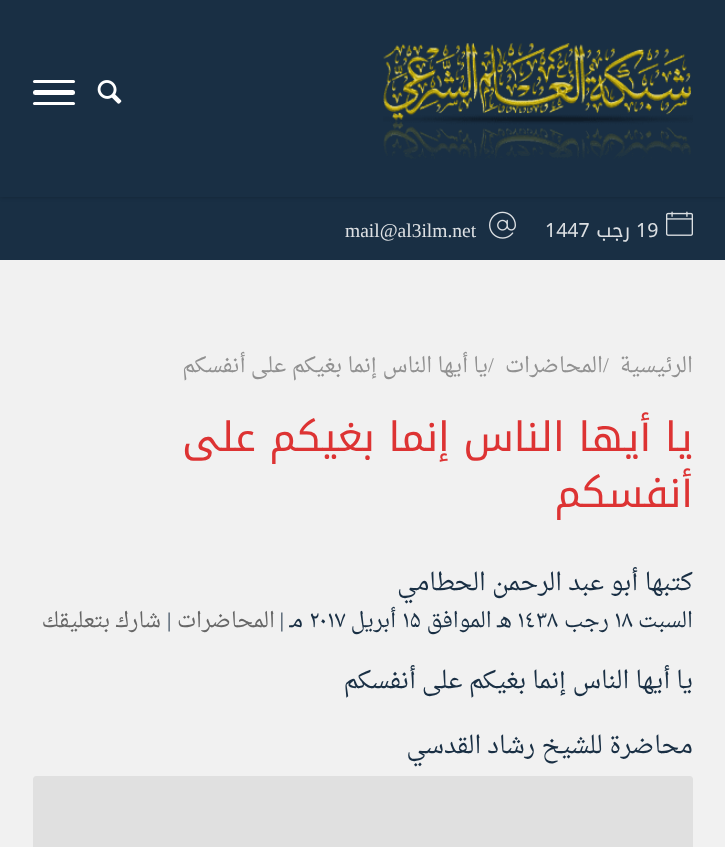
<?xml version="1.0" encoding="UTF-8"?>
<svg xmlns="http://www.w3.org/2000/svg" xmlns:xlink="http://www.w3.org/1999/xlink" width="725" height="847">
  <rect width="100%" height="100%" fill="#f1f1f1" />
  <rect y="197" width="725" height="63" fill="#192f44" />
  <rect width="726" height="197" fill="#000000" fill-opacity="0.22" filter="blur(2px)" />
  <rect width="725" height="197" fill="#192f44" />
  <image x="383" y="43" width="310" height="116" xlink:href="image1.png" />
  <image x="97" y="80" width="25" height="24" xlink:href="image2.png" />
  <rect x="33" y="102" width="42" height="3" rx="1.5" fill="#ffffff" />
  <rect x="33" y="80" width="42" height="3" rx="1.5" fill="#ffffff" />
  <rect x="33" y="90" width="42" height="5" rx="2.5" fill="#ffffff" />
  <image x="666" y="211" width="27" height="25" xlink:href="image3.png" />
  <image x="489" y="211" width="27" height="28" xlink:href="image4.png" />
  <path d="M 36 776 h 654 c 1.5 0 3 1.5 3 3 v 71 h -660 v -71 c 0 -1.5 1.5 -3 3 -3 z" fill="#e0e0e0" />
  <text x="636" y="237" style="font-family: Noto Kufi Arabic; font-size: 19.5px; fill: #dde0e3">19</text>
  <text x="630" y="237" style="font-family: Noto Kufi Arabic; font-size: 19.5px; direction: rtl; fill: #dde0e3">رجب</text>
  <text x="545" y="237" style="font-family: Noto Kufi Arabic; font-size: 19.5px; fill: #dde0e3">1447</text>
  <text x="345" y="237" style="font-family: Liberation Serif; font-size: 19.5px; fill: #dde0e3">mail@al3ilm.net</text>
  <text x="693" y="372" style="font-family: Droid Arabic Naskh; font-size: 21px; direction: rtl; fill: #919191">الرئيسية</text>
  <text x="603" y="372" style="font-family: Liberation Serif; font-size: 21px; fill: #919191">/</text>
  <text x="603" y="372" style="font-family: Droid Arabic Naskh; font-size: 21px; direction: rtl; fill: #919191">المحاضرات</text>
  <text x="488" y="372" style="font-family: Liberation Serif; font-size: 21px; fill: #919191">/</text>
  <text x="488" y="372" style="font-family: Droid Arabic Naskh; font-size: 21px; direction: rtl; fill: #919191">يا أيها الناس إنما بغيكم على أنفسكم</text>
  <text x="693" y="451" style="font-family: Noto Kufi Arabic; font-size: 40.5px; direction: rtl; fill: #dd3333">يا أيها الناس إنما بغيكم على</text>
  <text x="693" y="507" style="font-family: Noto Kufi Arabic; font-size: 40.5px; direction: rtl; fill: #dd3333">أنفسكم</text>
  <text x="693" y="590" style="font-family: Droid Arabic Naskh; font-size: 24px; direction: rtl; fill: #192f44">كتبها</text>
  <text x="638" y="590" style="font-family: Droid Arabic Naskh; font-size: 24px; direction: rtl; fill: #192f44">أبو عبد الرحمن الحطامي</text>
  <text x="693" y="627" style="font-family: Droid Arabic Naskh; font-size: 21px; direction: rtl; fill: #192f44">السبت</text>
  <text x="614" y="627" style="font-family: Droid Arabic Naskh; font-size: 21px; fill: #192f44">۱۸</text>
  <text x="609" y="627" style="font-family: Droid Arabic Naskh; font-size: 21px; direction: rtl; fill: #192f44">رجب</text>
  <text x="517" y="627" style="font-family: Droid Arabic Naskh; font-size: 21px; fill: #192f44">۱٤۳۸</text>
  <text x="512" y="627" style="font-family: Droid Arabic Naskh; font-size: 21px; direction: rtl; fill: #192f44">هـ الموافق</text>
  <text x="402" y="627" style="font-family: Droid Arabic Naskh; font-size: 21px; fill: #192f44">۱۵</text>
  <text x="396" y="627" style="font-family: Droid Arabic Naskh; font-size: 21px; direction: rtl; fill: #192f44">أبريل</text>
  <text x="309" y="627" style="font-family: Droid Arabic Naskh; font-size: 21px; fill: #192f44">۲۰۱۷</text>
  <text x="303" y="627" style="font-family: Droid Arabic Naskh; font-size: 21px; direction: rtl; fill: #192f44">مـ</text>
  <text x="284" y="627" style="font-family: Liberation Serif; font-size: 21px; direction: rtl; fill: #192f44">|</text>
  <text x="275" y="627" style="font-family: Droid Arabic Naskh; font-size: 21px; direction: rtl; fill: #666666">المحاضرات</text>
  <text x="167" y="627" style="font-family: Liberation Serif; font-size: 21px; fill: #192f44">|</text>
  <text x="161" y="627" style="font-family: Droid Arabic Naskh; font-size: 21px; direction: rtl; fill: #666666">شارك بتعليقك</text>
  <text x="693" y="688" style="font-family: Droid Arabic Naskh; font-size: 24px; direction: rtl; fill: #192f44">يا أيها الناس إنما بغيكم على أنفسكم</text>
  <text x="693" y="753" style="font-family: Droid Arabic Naskh; font-size: 24px; direction: rtl; fill: #192f44">محاضرة للشيخ رشاد القدسي</text>
</svg>
